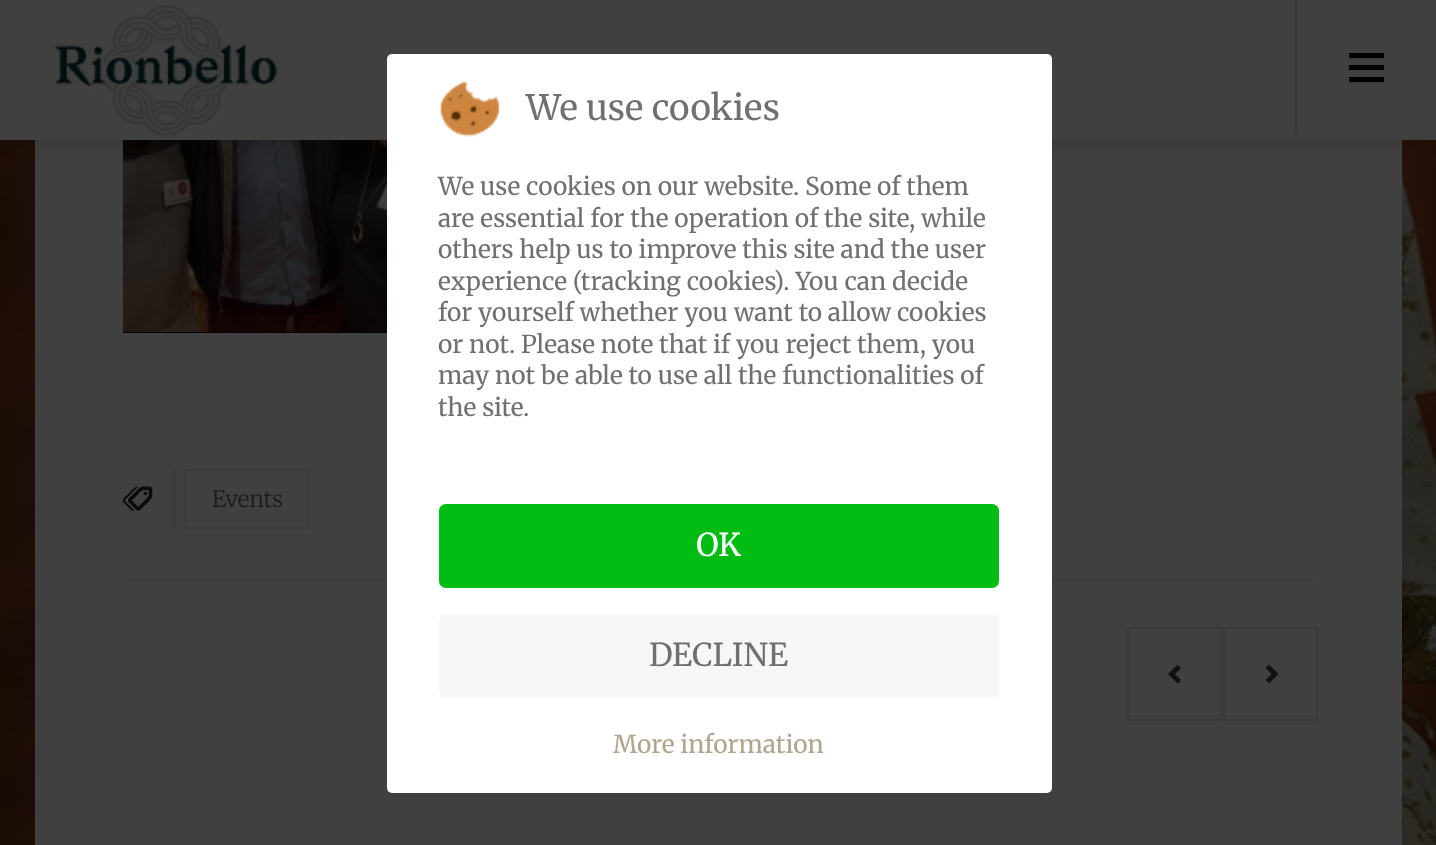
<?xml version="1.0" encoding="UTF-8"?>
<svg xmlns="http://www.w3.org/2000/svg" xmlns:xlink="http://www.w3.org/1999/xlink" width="1436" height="845">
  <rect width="100%" height="100%" fill="#ffffff" />
  <image x="0" y="140" width="1436" height="705" xlink:href="image2.png" />
  <rect x="35" y="140" width="1367" height="705" fill="#404040" />
  <rect x="123" y="332" width="264" height="1" fill="#000000" />
  <image x="122" y="140" width="265" height="193" xlink:href="image4.png" />
  <rect width="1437" height="140" fill="#000000" fill-opacity="0.2" filter="blur(9px)" />
  <rect width="1436" height="140" fill="#404040" />
  <rect x="123" y="579" width="1191" height="2" fill="#3c3c3c" />
  <rect x="387" y="54" width="665" height="739" rx="5" fill="#ffffff" />
  <image x="439" y="80" width="62" height="57" xlink:href="image1.png" />
  <rect x="439" y="504" width="560" height="84" rx="7" fill="#00bc13" />
  <rect x="439" y="614" width="560" height="84" rx="7" fill="#f7f7f7" />
  <image x="50" y="4" width="235" height="133" xlink:href="image3.png" />
  <rect x="1295" width="2" height="135" fill="#353535" />
  <rect x="1349" y="53" width="35" height="5" fill="#000000" />
  <rect x="1349" y="65" width="35" height="5" fill="#000000" />
  <rect x="1349" y="77" width="35" height="5" fill="#000000" />
  <rect x="173" y="469" width="2" height="60" fill="#393939" />
  <image x="123" y="486" width="30" height="25" xlink:href="image5.png" />
  <rect x="185" y="470" width="124" height="58" fill="none" stroke="#3c3c3c" stroke-width="2" />
  <rect x="1128" y="628" width="93" height="92" fill="none" stroke="#393939" stroke-width="2" />
  <path d="M 1177.5 683.5 l -9.5 -9.5 l 9.5 -9.5 l 3.5 3.5 l -6 6 l 6 6 z" fill="#111111" />
  <rect x="1224" y="628" width="93" height="92" fill="none" stroke="#393939" stroke-width="2" />
  <path d="M 1269 664.5 l 9.5 9.5 l -9.5 9.5 l -3.5 -3.5 l 6 -6 l -6 -6 z" fill="#111111" />
  <text x="526" y="120" style="font-family: Merriweather; font-size: 35px; fill: #707070">We use cookies</text>
  <text x="438" y="195" style="font-family: Merriweather; font-size: 24.5px; fill: #707070">We use cookies on our website. Some of them</text>
  <text x="438" y="227" style="font-family: Merriweather; font-size: 24.5px; fill: #707070">are essential for the operation of the site, while</text>
  <text x="438" y="258" style="font-family: Merriweather; font-size: 24.5px; fill: #707070">others help us to improve this site and the user</text>
  <text x="438" y="290" style="font-family: Merriweather; font-size: 24.5px; fill: #707070">experience (tracking cookies). You can decide</text>
  <text x="438" y="321" style="font-family: Merriweather; font-size: 24.5px; fill: #707070">for yourself whether you want to allow cookies</text>
  <text x="438" y="353" style="font-family: Merriweather; font-size: 24.5px; fill: #707070">or not. Please note that if you reject them, you</text>
  <text x="438" y="384" style="font-family: Merriweather; font-size: 24.5px; fill: #707070">may not be able to use all the functionalities of</text>
  <text x="438" y="416" style="font-family: Merriweather; font-size: 24.5px; fill: #707070">the site.</text>
  <text x="696" y="556" style="font-family: Merriweather; font-size: 31.5px; fill: #ffffff">OK</text>
  <text x="649" y="666" style="font-family: Merriweather; font-size: 31.5px; fill: #707070">DECLINE</text>
  <text x="613" y="753" style="font-family: Merriweather; font-size: 24.5px; fill: #b0a590">More information</text>
  <text x="212" y="507" style="font-family: Merriweather; font-size: 22.5px; font-weight: 300; fill: #1a1a1a">Events</text>
</svg>
